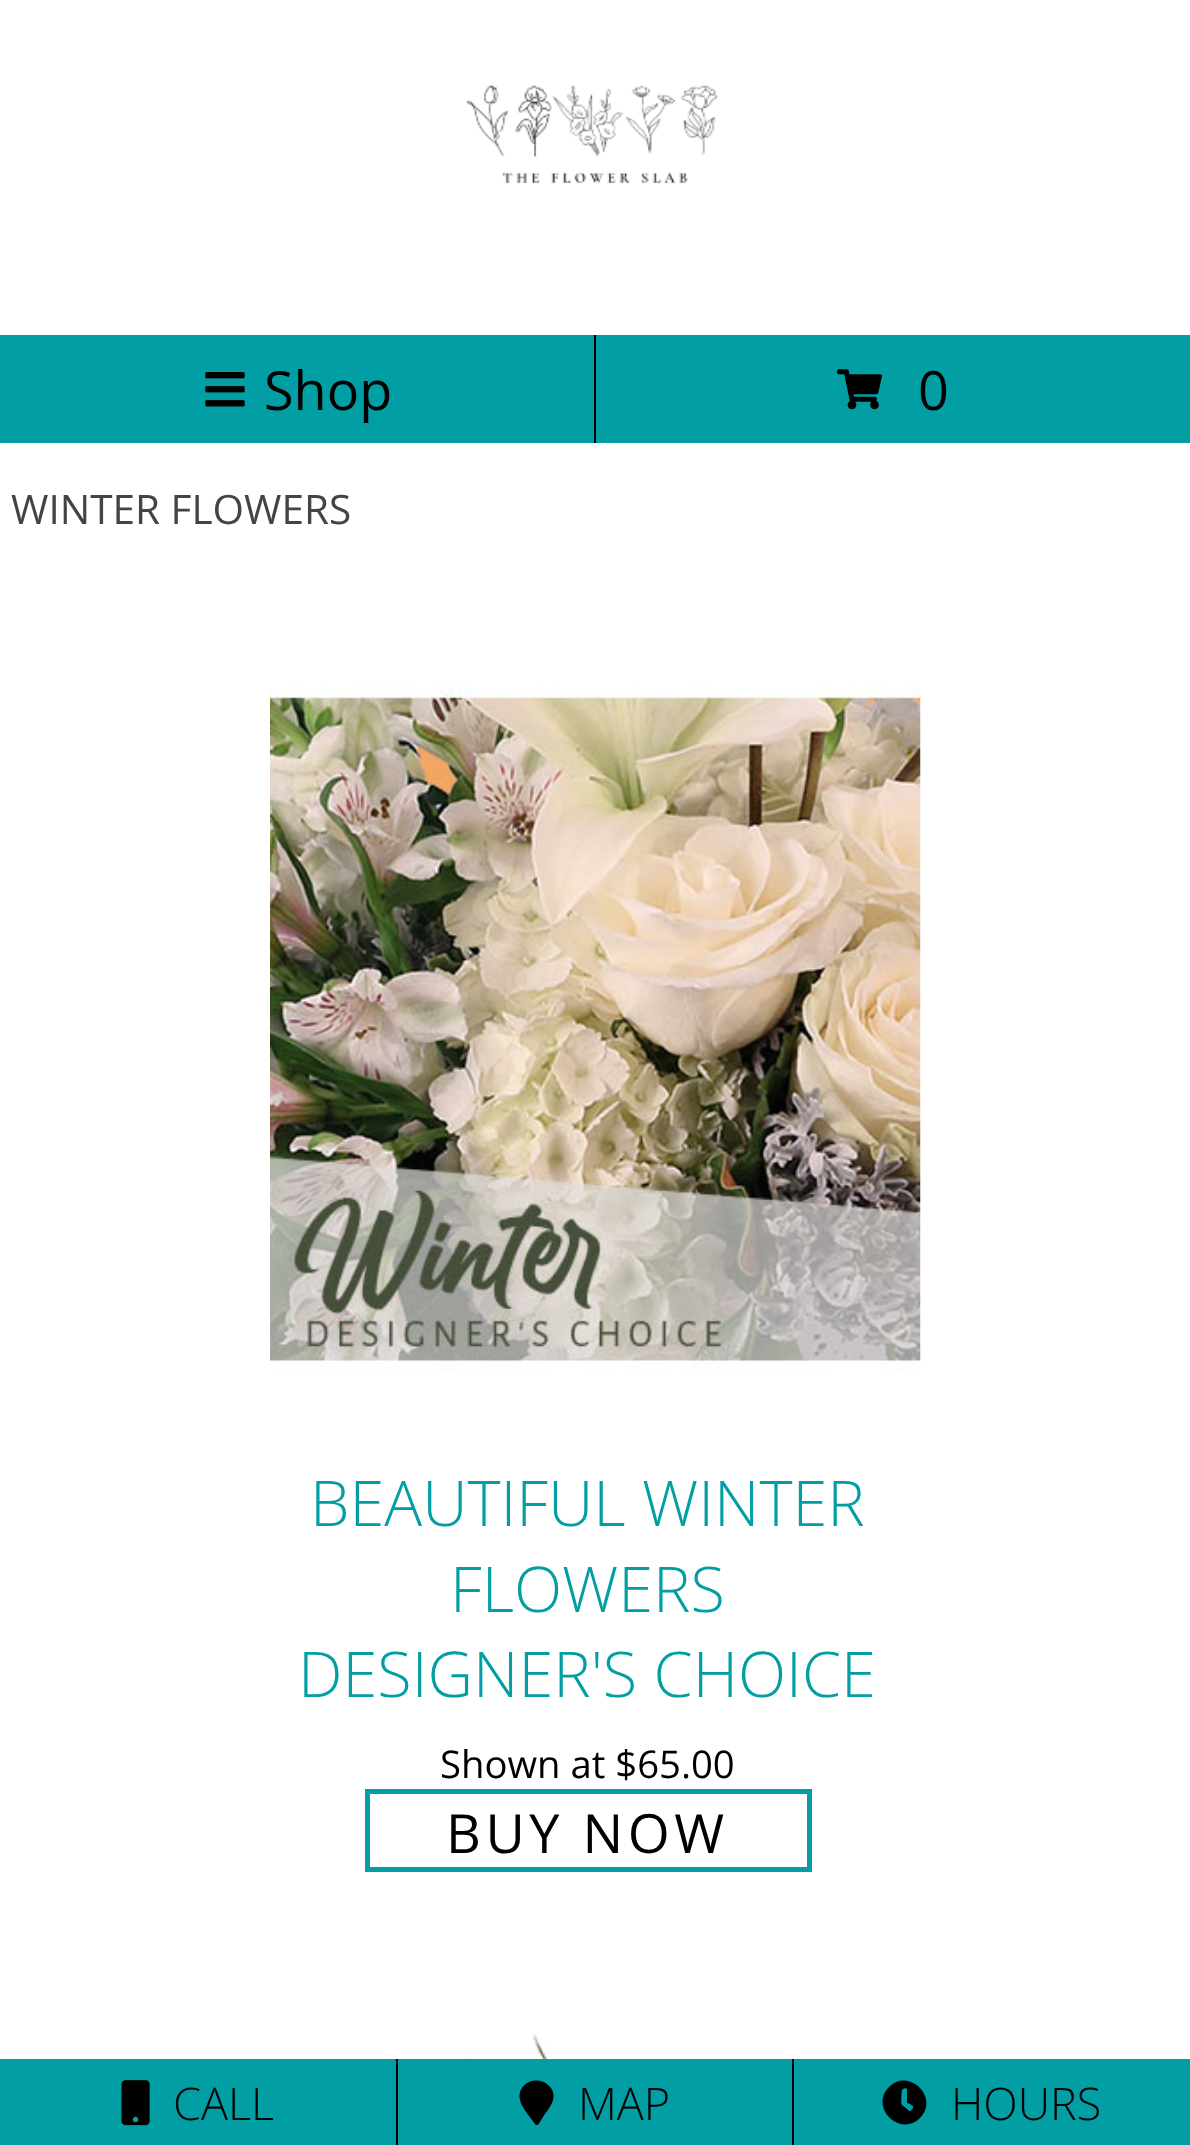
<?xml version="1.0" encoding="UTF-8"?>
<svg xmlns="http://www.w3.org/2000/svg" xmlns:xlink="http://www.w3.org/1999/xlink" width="1190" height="2145">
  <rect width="100%" height="100%" fill="#ffffff" />
  <image x="466" y="85" width="253" height="99" xlink:href="image1.png" />
  <rect x="594" y="335" width="2" height="108" fill="#000000" />
  <rect y="335" width="594" height="108" fill="#019ea3" />
  <image x="205" y="372" width="40" height="35" xlink:href="image2.png" />
  <rect x="596" y="335" width="594" height="108" fill="#019ea3" />
  <image x="837" y="369" width="45" height="41" xlink:href="image3.png" />
  <image x="270" y="687" width="651" height="685" xlink:href="image4.png" />
  <rect x="367.5" y="1791.5" width="442" height="78" fill="none" stroke="#019ea3" stroke-width="5" />
  <image x="453" y="2033" width="405" height="26" xlink:href="image5.png" />
  <rect y="2059" width="396" height="86" fill="#019ea3" />
  <image x="121" y="2080" width="29" height="46" xlink:href="image6.png" />
  <rect x="398" y="2059" width="394" height="86" fill="#019ea3" />
  <rect x="396" y="2059" width="2" height="86" fill="#000000" />
  <path d="M 535 2124 c -4 -6 -14 -17 -15 -24 c -4 -18 20 -27 31 -12 c 7 11 -2 20 -8 29 l -5 8 c -1 0 -3 0 -3 -1 z" fill="#000000" />
  <rect x="794" y="2059" width="396" height="86" fill="#019ea3" />
  <rect x="792" y="2059" width="2" height="86" fill="#000000" />
  <path d="M 889 2087 c 20 -20 51 11 31 31 c -20 20 -51 -11 -31 -31 z m 24 21 c 2 -2 -5 -5 -6 -5 v -14 c -1 -1 -3 -1 -4 0 c -2 0 -2 15 -1 16 l 5 4 c 3 3 3 3 6 -1 z" fill="#000000" />
  <text x="264" y="410" style="font-family: Open Sans; font-size: 54px; fill: #000000">Shop</text>
  <text x="918" y="410" style="font-family: Open Sans; font-size: 54px; fill: #000000">0</text>
  <text x="11" y="524" style="font-family: Open Sans; font-size: 40.5px; fill: #444444">WINTER FLOWERS</text>
  <text x="310" y="1526" style="font-family: Open Sans; font-size: 63px; font-weight: 300; fill: #019ea3">BEAUTIFUL WINTER</text>
  <text x="450" y="1612" style="font-family: Open Sans; font-size: 63px; font-weight: 300; fill: #019ea3">FLOWERS</text>
  <text x="298" y="1697" style="font-family: Open Sans; font-size: 63px; font-weight: 300; fill: #019ea3">DESIGNER'S CHOICE</text>
  <text x="440" y="1778" style="font-family: Open Sans; font-size: 38.25px; fill: #000000">Shown at $65.00</text>
  <text x="446" y="1853" style="font-family: Open Sans; font-size: 54px; letter-spacing: 4.5px; fill: #000000">BUY NOW</text>
  <text x="173" y="2120" style="font-family: Open Sans; font-size: 45px; font-weight: 300; fill: #000000">CALL</text>
  <text x="578" y="2120" style="font-family: Open Sans; font-size: 45px; font-weight: 300; fill: #000000">MAP</text>
  <text x="951" y="2120" style="font-family: Open Sans; font-size: 45px; font-weight: 300; fill: #000000">HOURS</text>
</svg>
